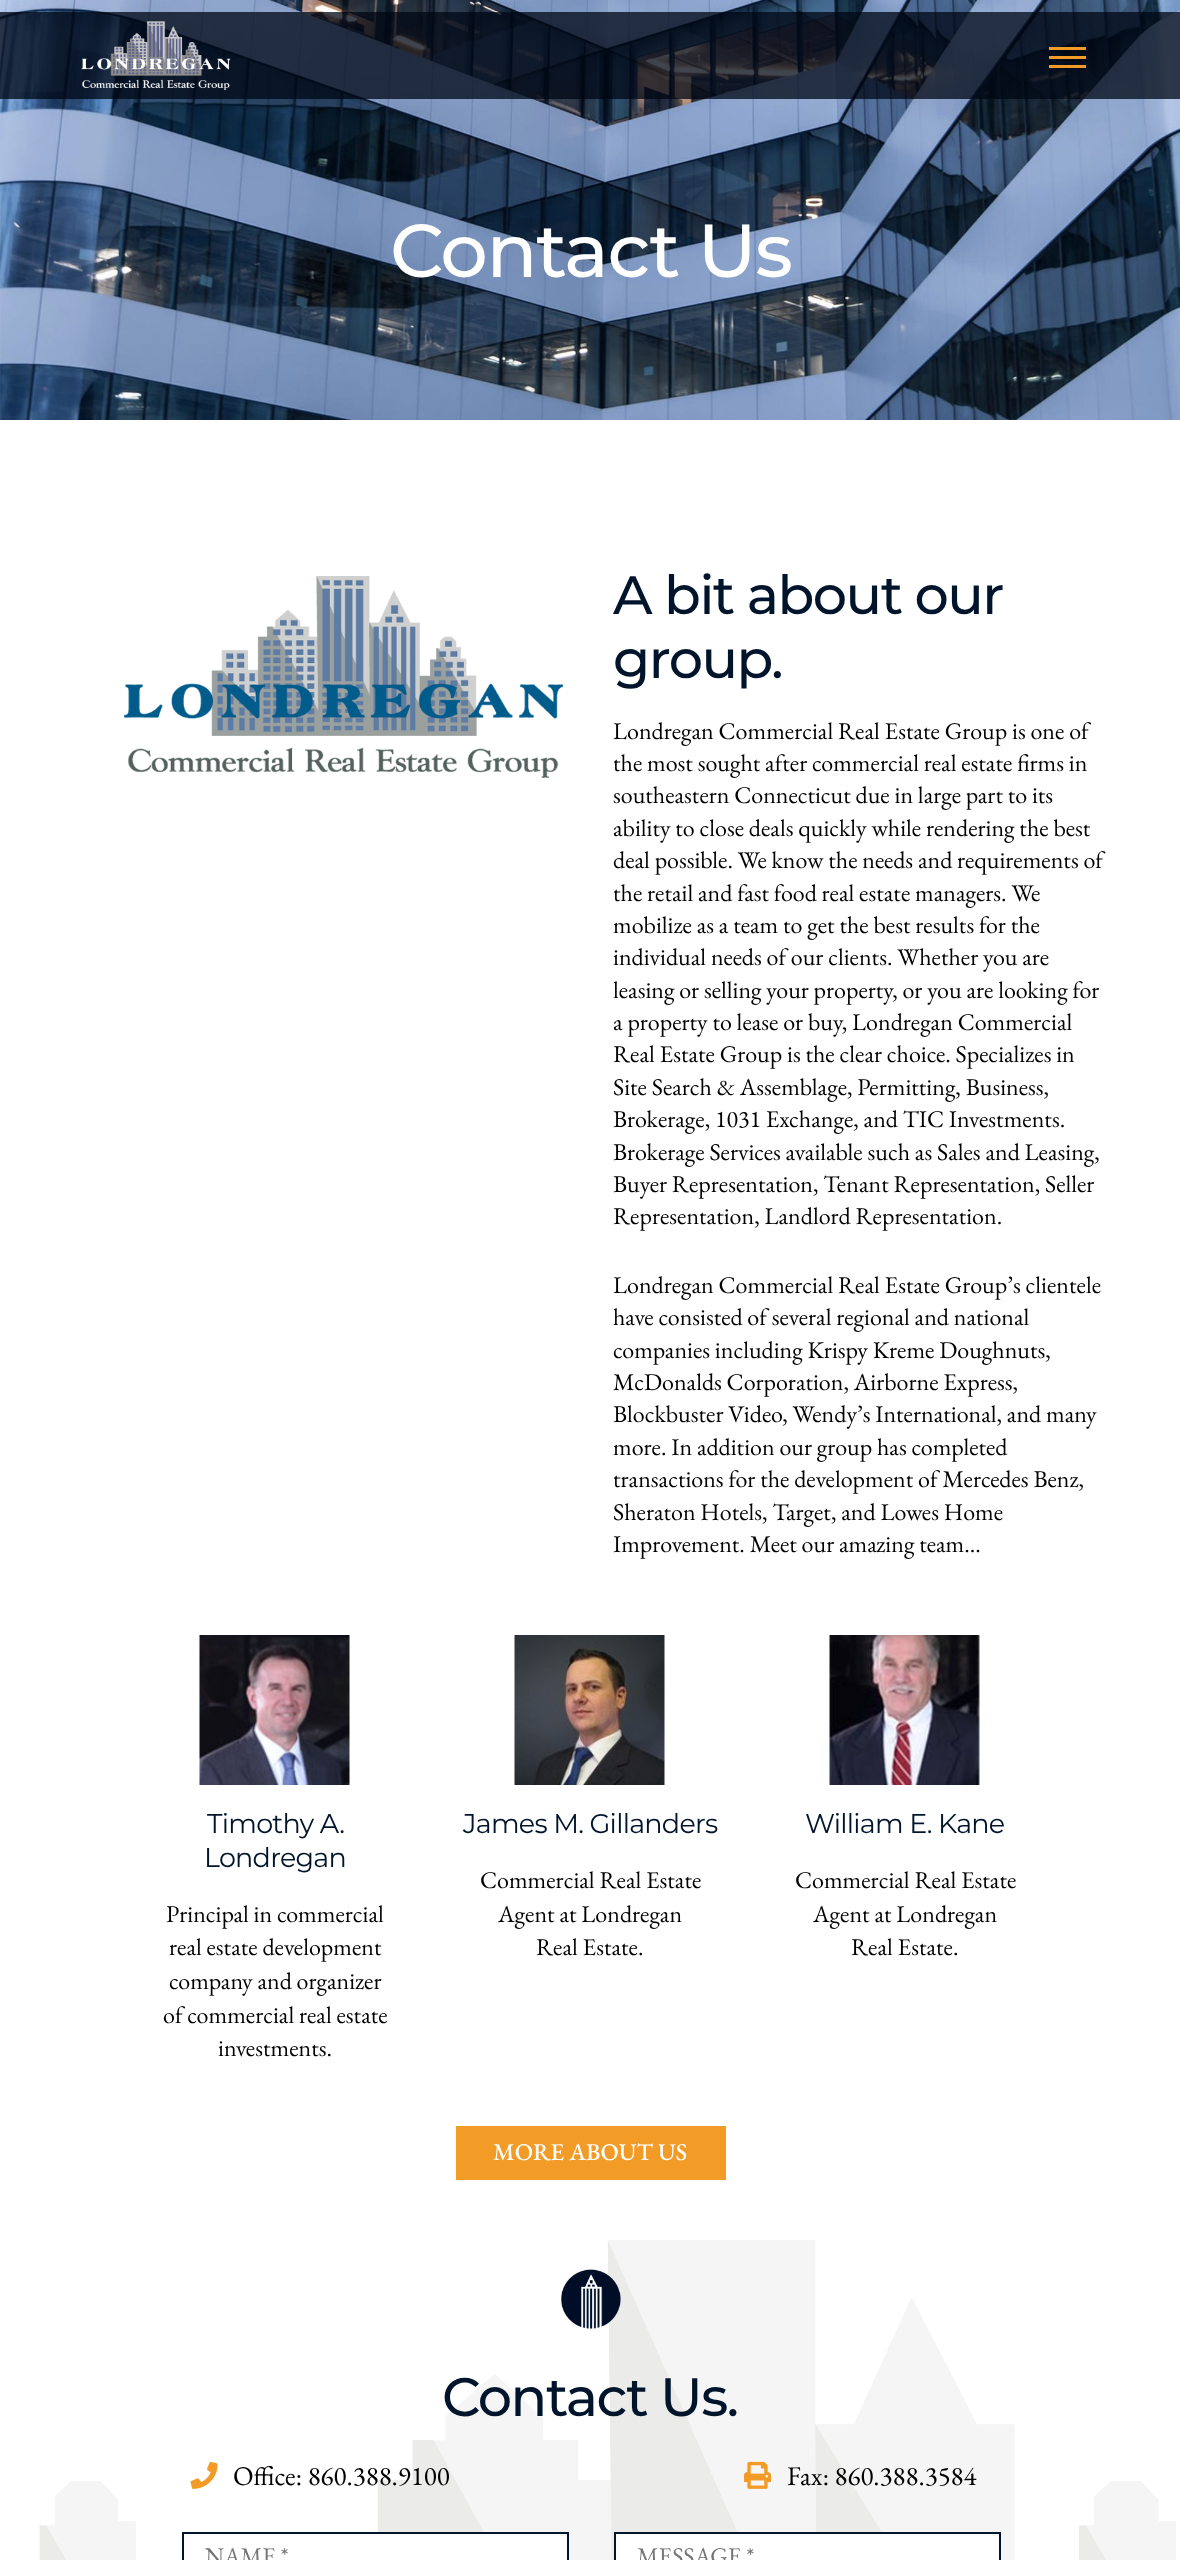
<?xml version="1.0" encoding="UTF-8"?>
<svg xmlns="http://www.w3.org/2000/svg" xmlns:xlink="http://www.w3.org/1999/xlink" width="1180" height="2560">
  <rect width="100%" height="100%" fill="#ffffff" />
  <image x="0" y="0" width="1180" height="420" xlink:href="image2.png" />
  <rect y="12" width="1180" height="87" fill="#000714" fill-opacity="0.75" />
  <image x="81" y="21" width="150" height="69" xlink:href="image1.png" />
  <rect x="1049" y="56" width="37" height="3" fill="#f29c27" />
  <rect x="1049" y="47" width="37" height="3" fill="#f29c27" />
  <rect x="1049" y="65" width="37" height="3" fill="#f29c27" />
  <image x="124" y="576" width="439" height="202" xlink:href="image3.png" />
  <image x="199" y="1635" width="151" height="150" xlink:href="image4.png" />
  <image x="514" y="1635" width="151" height="150" xlink:href="image5.png" />
  <image x="829" y="1635" width="151" height="150" xlink:href="image6.png" />
  <rect x="456" y="2126" width="270" height="54" fill="#f29c27" />
  <image x="39" y="2240" width="1137" height="320" xlink:href="image7.png" />
  <image x="561" y="2269" width="60" height="60" xlink:href="image8.png" />
  <image x="190" y="2461" width="28" height="28" xlink:href="image9.png" />
  <image x="744" y="2461" width="27" height="28" xlink:href="image10.png" />
  <rect x="235" y="2534" width="332" height="26" fill="#ffffff" />
  <rect x="183" y="2533" width="385" height="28" fill="none" stroke="#00152b" stroke-width="2" />
  <rect x="615" y="2533" width="385" height="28" fill="#ffffff" stroke="#00152b" stroke-width="2" />
  <text x="390" y="277" style="font-family: Montserrat; font-size: 75px; font-weight: 500; letter-spacing: -1.5px; fill: #ffffff">Contact Us</text>
  <text x="613" y="614" style="font-family: Montserrat; font-size: 54px; font-weight: 500; letter-spacing: -1.5px; fill: #00152b">A bit about our</text>
  <text x="613" y="678" style="font-family: Montserrat; font-size: 54px; font-weight: 500; letter-spacing: -1.5px; fill: #00152b">group.</text>
  <text x="613" y="739" style="font-family: EB Garamond; font-size: 24px; fill: #000000">Londregan Commercial Real Estate Group is one of</text>
  <text x="613" y="771" style="font-family: EB Garamond; font-size: 24px; fill: #000000">the most sought after commercial real estate firms in</text>
  <text x="613" y="803" style="font-family: EB Garamond; font-size: 24px; fill: #000000">southeastern Connecticut due in large part to its</text>
  <text x="613" y="836" style="font-family: EB Garamond; font-size: 24px; fill: #000000">ability to close deals quickly while rendering the best</text>
  <text x="613" y="868" style="font-family: EB Garamond; font-size: 24px; fill: #000000">deal possible. We know the needs and requirements of</text>
  <text x="613" y="901" style="font-family: EB Garamond; font-size: 24px; fill: #000000">the retail and fast food real estate managers. We</text>
  <text x="613" y="933" style="font-family: EB Garamond; font-size: 24px; fill: #000000">mobilize as a team to get the best results for the</text>
  <text x="613" y="965" style="font-family: EB Garamond; font-size: 24px; fill: #000000">individual needs of our clients. Whether you are</text>
  <text x="613" y="998" style="font-family: EB Garamond; font-size: 24px; fill: #000000">leasing or selling your property, or you are looking for</text>
  <text x="613" y="1030" style="font-family: EB Garamond; font-size: 24px; fill: #000000">a property to lease or buy, Londregan Commercial</text>
  <text x="613" y="1062" style="font-family: EB Garamond; font-size: 24px; fill: #000000">Real Estate Group is the clear choice. Specializes in</text>
  <text x="613" y="1095" style="font-family: EB Garamond; font-size: 24px; fill: #000000">Site Search &amp; Assemblage, Permitting, Business,</text>
  <text x="613" y="1127" style="font-family: EB Garamond; font-size: 24px; fill: #000000">Brokerage, 1031 Exchange, and TIC Investments.</text>
  <text x="613" y="1160" style="font-family: EB Garamond; font-size: 24px; fill: #000000">Brokerage Services available such as Sales and Leasing,</text>
  <text x="613" y="1192" style="font-family: EB Garamond; font-size: 24px; fill: #000000">Buyer Representation, Tenant Representation, Seller</text>
  <text x="613" y="1224" style="font-family: EB Garamond; font-size: 24px; fill: #000000">Representation, Landlord Representation.</text>
  <text x="613" y="1293" style="font-family: EB Garamond; font-size: 24px; fill: #000000">Londregan Commercial Real Estate Group’s clientele</text>
  <text x="613" y="1325" style="font-family: EB Garamond; font-size: 24px; fill: #000000">have consisted of several regional and national</text>
  <text x="613" y="1358" style="font-family: EB Garamond; font-size: 24px; fill: #000000">companies including Krispy Kreme Doughnuts,</text>
  <text x="613" y="1390" style="font-family: EB Garamond; font-size: 24px; fill: #000000">McDonalds Corporation, Airborne Express,</text>
  <text x="613" y="1422" style="font-family: EB Garamond; font-size: 24px; fill: #000000">Blockbuster Video, Wendy’s International, and many</text>
  <text x="613" y="1455" style="font-family: EB Garamond; font-size: 24px; fill: #000000">more. In addition our group has completed</text>
  <text x="613" y="1487" style="font-family: EB Garamond; font-size: 24px; fill: #000000">transactions for the development of Mercedes Benz,</text>
  <text x="613" y="1520" style="font-family: EB Garamond; font-size: 24px; fill: #000000">Sheraton Hotels, Target, and Lowes Home</text>
  <text x="613" y="1552" style="font-family: EB Garamond; font-size: 24px; fill: #000000">Improvement. Meet our amazing team...</text>
  <text x="207" y="1833" style="font-family: Montserrat; font-size: 27px; letter-spacing: -0.75px; fill: #00152b">Timothy A.</text>
  <text x="204" y="1867" style="font-family: Montserrat; font-size: 27px; letter-spacing: -0.75px; fill: #00152b">Londregan</text>
  <text x="166" y="1922" style="font-family: EB Garamond; font-size: 24px; fill: #000000">Principal in commercial</text>
  <text x="169" y="1955" style="font-family: EB Garamond; font-size: 24px; fill: #000000">real estate development</text>
  <text x="169" y="1989" style="font-family: EB Garamond; font-size: 24px; fill: #000000">company and organizer</text>
  <text x="163" y="2023" style="font-family: EB Garamond; font-size: 24px; fill: #000000">of commercial real estate</text>
  <text x="218" y="2056" style="font-family: EB Garamond; font-size: 24px; fill: #000000">investments.</text>
  <text x="463" y="1833" style="font-family: Montserrat; font-size: 27px; letter-spacing: -0.75px; fill: #00152b">James M. Gillanders</text>
  <text x="480" y="1888" style="font-family: EB Garamond; font-size: 24px; fill: #000000">Commercial Real Estate</text>
  <text x="498" y="1922" style="font-family: EB Garamond; font-size: 24px; fill: #000000">Agent at Londregan</text>
  <text x="536" y="1955" style="font-family: EB Garamond; font-size: 24px; fill: #000000">Real Estate.</text>
  <text x="805" y="1833" style="font-family: Montserrat; font-size: 27px; letter-spacing: -0.75px; fill: #00152b">William E. Kane</text>
  <text x="795" y="1888" style="font-family: EB Garamond; font-size: 24px; fill: #000000">Commercial Real Estate</text>
  <text x="813" y="1922" style="font-family: EB Garamond; font-size: 24px; fill: #000000">Agent at Londregan</text>
  <text x="851" y="1955" style="font-family: EB Garamond; font-size: 24px; fill: #000000">Real Estate.</text>
  <text x="493" y="2160" style="font-family: EB Garamond; font-size: 24px; font-weight: 500; fill: #ffffff">MORE ABOUT US</text>
  <text x="442" y="2416" style="font-family: Montserrat; font-size: 54px; font-weight: 500; letter-spacing: -1.5px; fill: #00152b">Contact Us.</text>
  <text x="233" y="2485" style="font-family: EB Garamond; font-size: 27px; fill: #000000">Office: 860.388.9100</text>
  <text x="787" y="2485" style="font-family: EB Garamond; font-size: 27px; fill: #000000">Fax: 860.388.3584</text>
  <text x="205" y="2564" style="font-family: EB Garamond; font-size: 24px; fill: #757575">NAME *</text>
  <text x="637" y="2564" style="font-family: EB Garamond; font-size: 24px; fill: #757575">MESSAGE *</text>
</svg>
